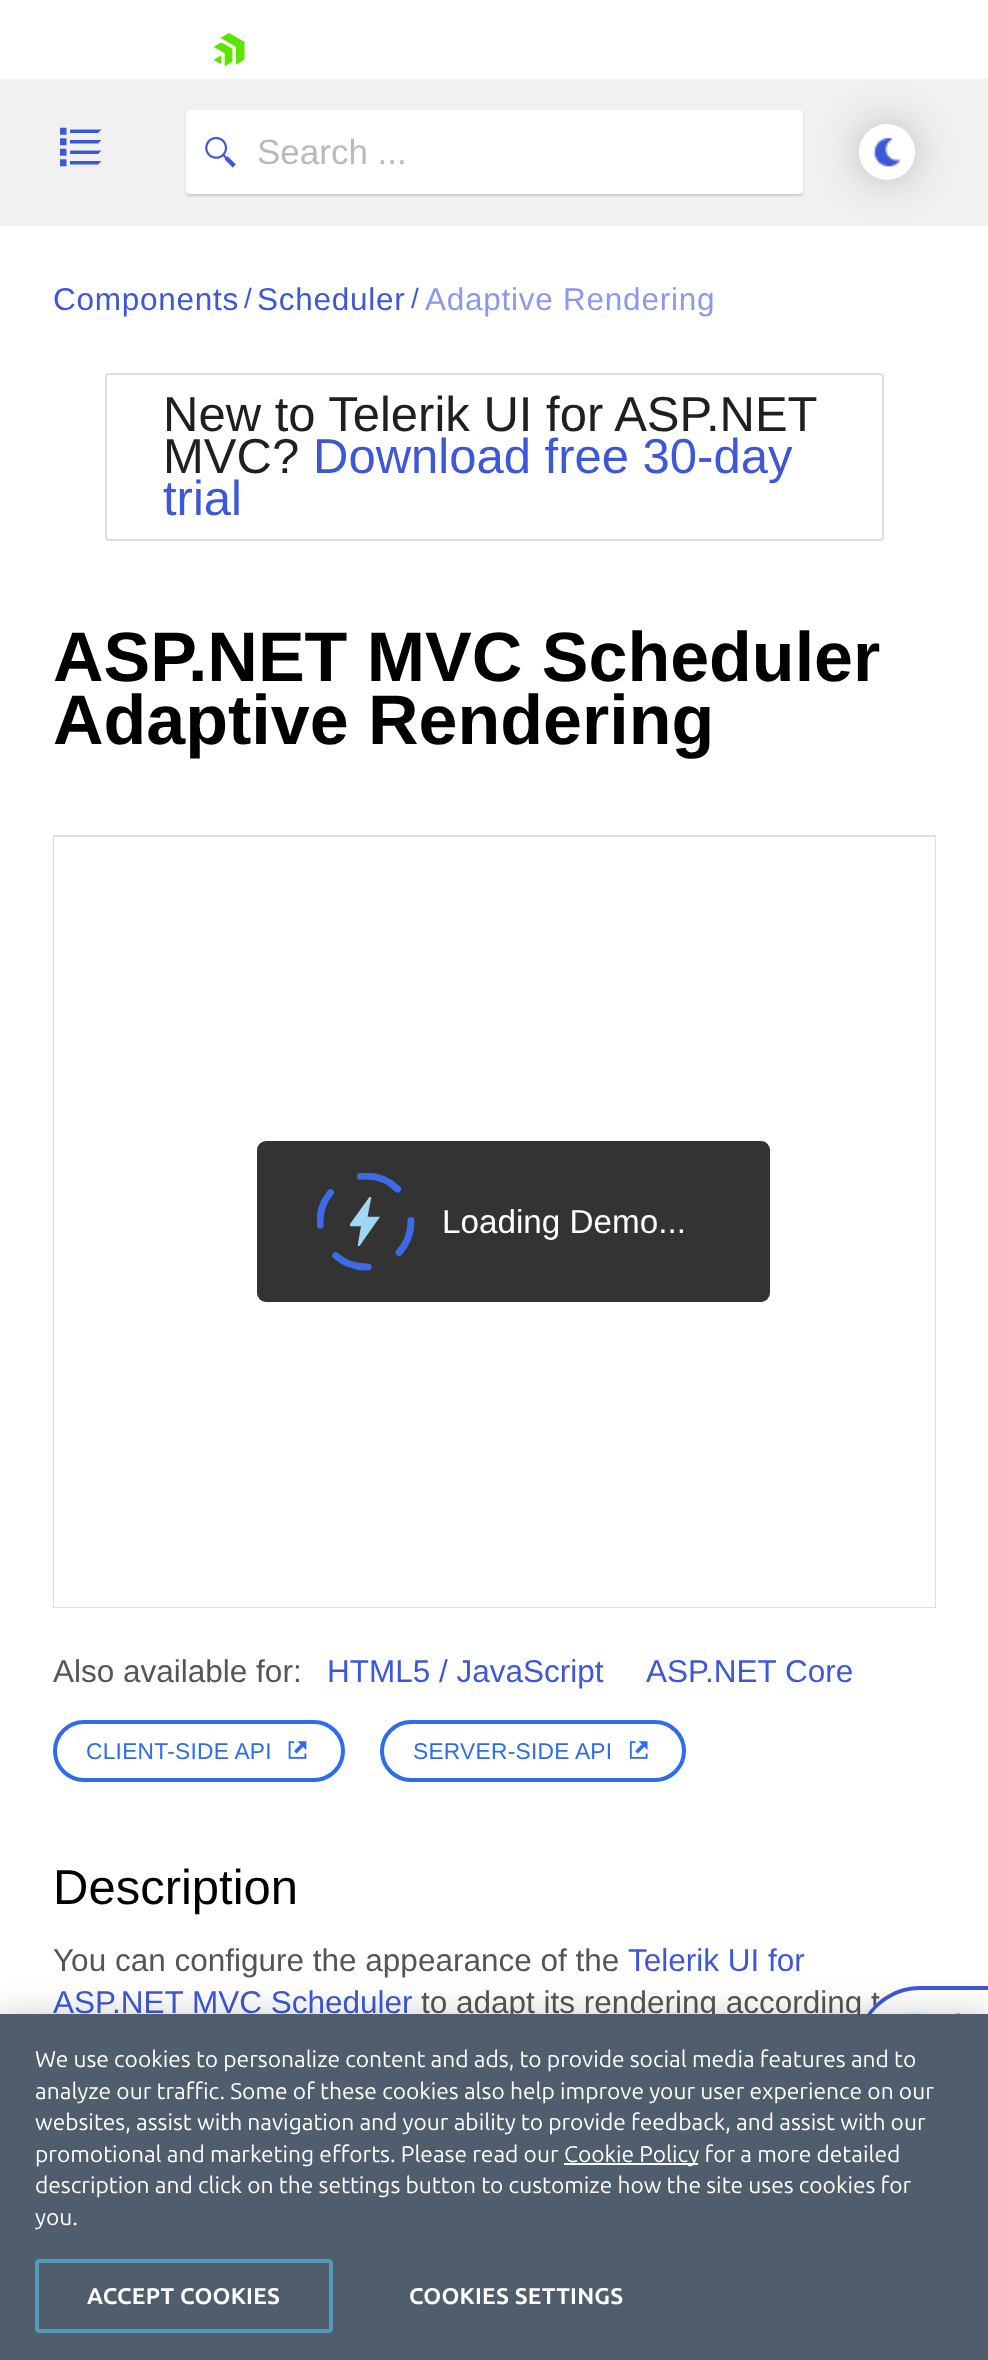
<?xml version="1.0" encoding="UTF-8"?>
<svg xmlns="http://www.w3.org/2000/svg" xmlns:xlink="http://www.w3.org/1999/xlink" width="988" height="2360">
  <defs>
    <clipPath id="clip1"><rect x="317" y="1173" width="98" height="98" /></clipPath>
    <clipPath id="clip2"><rect x="350" y="1197" width="30" height="49" /></clipPath>
  </defs>
  <rect width="100%" height="100%" fill="#ffffff" />
  <image x="214" y="33" width="31" height="34" xlink:href="image1.png" />
  <rect y="79" width="988" height="147" fill="#f1f1f1" />
  <image x="60" y="127" width="42" height="40" xlink:href="image2.png" />
  <rect x="186" y="112" width="617" height="84" rx="4" fill="#000000" fill-opacity="0.15" filter="blur(1px)" />
  <rect x="859" y="124" width="56" height="56" rx="28" fill="#5a5e66" fill-opacity="0.4" filter="blur(21px)" />
  <rect x="187" y="111" width="615" height="82" rx="3" fill="#ffffff" stroke="#ffffff" stroke-width="2" />
  <image x="205" y="136" width="31" height="32" xlink:href="image3.png" />
  <circle cx="887" cy="152" r="28" fill="#ffffff" />
  <image x="873" y="138" width="28" height="29" xlink:href="image4.png" />
  <rect x="106" y="374" width="777" height="166" rx="3" fill="none" stroke="#dedede" stroke-width="2" />
  <rect x="54" y="836" width="881" height="771" fill="none" stroke="#dedede" stroke-width="2" />
  <rect x="54" y="837" width="881" height="770" fill="#ffffff" />
  <rect x="257" y="1141" width="513" height="161" rx="9" fill="#333333" />
  <g clip-path="url(#clip1)">
    <path d="M 366 1176 c 25 0 45 20.5 45 45.5 c 0 25 -20 45.5 -45 45.5 c -25.5 0 -46 -20.5 -46 -45.5 c 0 -25 20.5 -45.5 46 -45.5 z" fill="none" stroke="#3e6be5" stroke-width="7" stroke-linecap="round" stroke-dasharray="35 35" />
  </g>
  <path d="M 370 1197 l -20 28 h 12 l -4 21 l 21 -29 h -12 z" fill="#a2d7f1" />
  <g clip-path="url(#clip2)">
    <path d="M 370.5 1197 l -20.5 28.5 h 12 l -3.5 20.5 l 20 -28.5 h -12 z" fill="none" stroke="#a2d7f1" stroke-width="1.7" />
  </g>
  <rect x="55" y="1722" width="288" height="58" rx="29" fill="none" stroke="#2d6cec" stroke-width="4" />
  <image x="288" y="1741" width="19" height="18" xlink:href="image5.png" />
  <rect x="382" y="1722" width="302" height="58" rx="29" fill="none" stroke="#2d6cec" stroke-width="4" />
  <image x="629" y="1741" width="19" height="18" xlink:href="image6.png" />
  <rect x="856" y="1993" width="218" height="130" rx="65" fill="#000000" fill-opacity="0.16" filter="blur(7px)" />
  <text x="257" y="164" style="font-family: Liberation Sans; font-size: 35px; fill: #bababa">Search ...</text>
  <text x="53" y="310" style="font-family: Liberation Sans; font-size: 31.5px; letter-spacing: 0.75px; fill: #3d57d8">Components</text>
  <text x="244" y="308" style="font-family: Liberation Sans; font-size: 28px; fill: #3d57d8">/</text>
  <text x="257" y="310" style="font-family: Liberation Sans; font-size: 31.5px; letter-spacing: 0.75px; fill: #3d57d8">Scheduler</text>
  <text x="411" y="308" style="font-family: Liberation Sans; font-size: 28px; fill: #3d57d8">/</text>
  <text x="425" y="310" style="font-family: Liberation Sans; font-size: 31.5px; letter-spacing: 0.75px; fill: #8b9ae8">Adaptive Rendering</text>
  <text x="163" y="431" style="font-family: Liberation Sans; font-size: 49px; fill: #1f1f1f">New to Telerik UI for ASP.NET</text>
  <text x="163" y="473" style="font-family: Liberation Sans; font-size: 49px; fill: #1f1f1f">MVC?</text>
  <text x="313" y="473" style="font-family: Liberation Sans; font-size: 49px; fill: #3d57d8">Download free 30-day</text>
  <text x="163" y="515" style="font-family: Liberation Sans; font-size: 49px; fill: #3d57d8">trial</text>
  <text x="53" y="681" style="font-family: Liberation Sans; font-size: 70px; font-weight: bold; fill: #000000">ASP.NET MVC Scheduler</text>
  <text x="53" y="744" style="font-family: Liberation Sans; font-size: 70px; font-weight: bold; fill: #000000">Adaptive Rendering</text>
  <text x="442" y="1233" style="font-family: Liberation Sans; font-size: 33.25px; fill: #ffffff">Loading Demo...</text>
  <text x="53" y="1682" style="font-family: Liberation Sans; font-size: 31.5px; fill: #555555">Also available for:</text>
  <text x="327" y="1682" style="font-family: Liberation Sans; font-size: 31.5px; fill: #3d57d8">HTML5 / JavaScript</text>
  <text x="646" y="1682" style="font-family: Liberation Sans; font-size: 31.5px; fill: #3d57d8">ASP.NET Core</text>
  <text x="86" y="1759" style="font-family: Liberation Sans; font-size: 22.75px; letter-spacing: 0.25px; fill: #2d6cec">CLIENT-SIDE API</text>
  <text x="413" y="1759" style="font-family: Liberation Sans; font-size: 22.75px; letter-spacing: 0.25px; fill: #2d6cec">SERVER-SIDE API</text>
  <text x="53" y="1904" style="font-family: Liberation Sans; font-size: 49px; fill: #000000">Description</text>
  <text x="53" y="1971" style="font-family: Liberation Sans; font-size: 31.5px; fill: #555555">You can configure the appearance of the</text>
  <text x="628" y="1971" style="font-family: Liberation Sans; font-size: 31.5px; fill: #3d57d8">Telerik UI for</text>
  <text x="53" y="2013" style="font-family: Liberation Sans; font-size: 31.5px; fill: #3d57d8">ASP.NET MVC Scheduler</text>
  <text x="421" y="2013" style="font-family: Liberation Sans; font-size: 31.5px; fill: #555555">to adapt its rendering according t</text>
  <path d="M 921 1986 h 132 v 130 h -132 c -36 0 -65 -29 -65 -65 c 0 -36 29 -65 65 -65 z" fill="#ffffff" />
  <path d="M 920 1986 h 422 v 130 h -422 c -35 0 -64 -29 -64 -65 c 0 -36 29 -65 64 -65 z m 0 4 h 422 v 122 h -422 c -33 0 -61 -27 -61 -61 c 0 -34 28 -61 61 -61 z" fill="#3d57d8" fill-rule="evenodd" />
  <image x="903" y="2012" width="58" height="2" xlink:href="image7.png" />
  <rect y="2014" width="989" height="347" fill="#000000" fill-opacity="0.2" filter="blur(16px)" />
  <rect y="2014" width="988" height="346" fill="#4f5d6c" />
  <text x="35" y="2225" style="font-family: Ubuntu; font-size: 22.75px; fill: #ffffff">you.</text>
  <text x="35" y="2193" style="font-family: Ubuntu; font-size: 22.75px; fill: #ffffff">description and click on the settings button to customize how the site uses cookies for</text>
  <rect x="564" y="2163" width="134" height="2" fill="#ffffff" />
  <text x="564" y="2162" style="font-family: Ubuntu; font-size: 22.75px; fill: #ffffff">Cookie Policy for a more detailed</text>
  <text x="35" y="2162" style="font-family: Ubuntu; font-size: 22.75px; fill: #ffffff">promotional and marketing efforts. Please read our</text>
  <text x="35" y="2130" style="font-family: Ubuntu; font-size: 22.75px; fill: #ffffff">websites, assist with navigation and your ability to provide feedback, and assist with our</text>
  <text x="35" y="2099" style="font-family: Ubuntu; font-size: 22.75px; fill: #ffffff">analyze our traffic. Some of these cookies also help improve your user experience on our</text>
  <text x="35" y="2067" style="font-family: Ubuntu; font-size: 22.75px; fill: #ffffff">We use cookies to personalize content and ads, to provide social media features and to</text>
  <rect x="37" y="2261" width="294" height="70" rx="2" fill="none" stroke="#5699b6" stroke-width="4" />
  <text x="87" y="2304" style="font-family: Ubuntu; font-size: 22.75px; font-weight: bold; letter-spacing: 0.25px; fill: #ffffff">ACCEPT COOKIES</text>
  <text x="409" y="2304" style="font-family: Ubuntu; font-size: 22.75px; font-weight: bold; letter-spacing: 0.25px; fill: #ffffff">COOKIES SETTINGS</text>
</svg>
